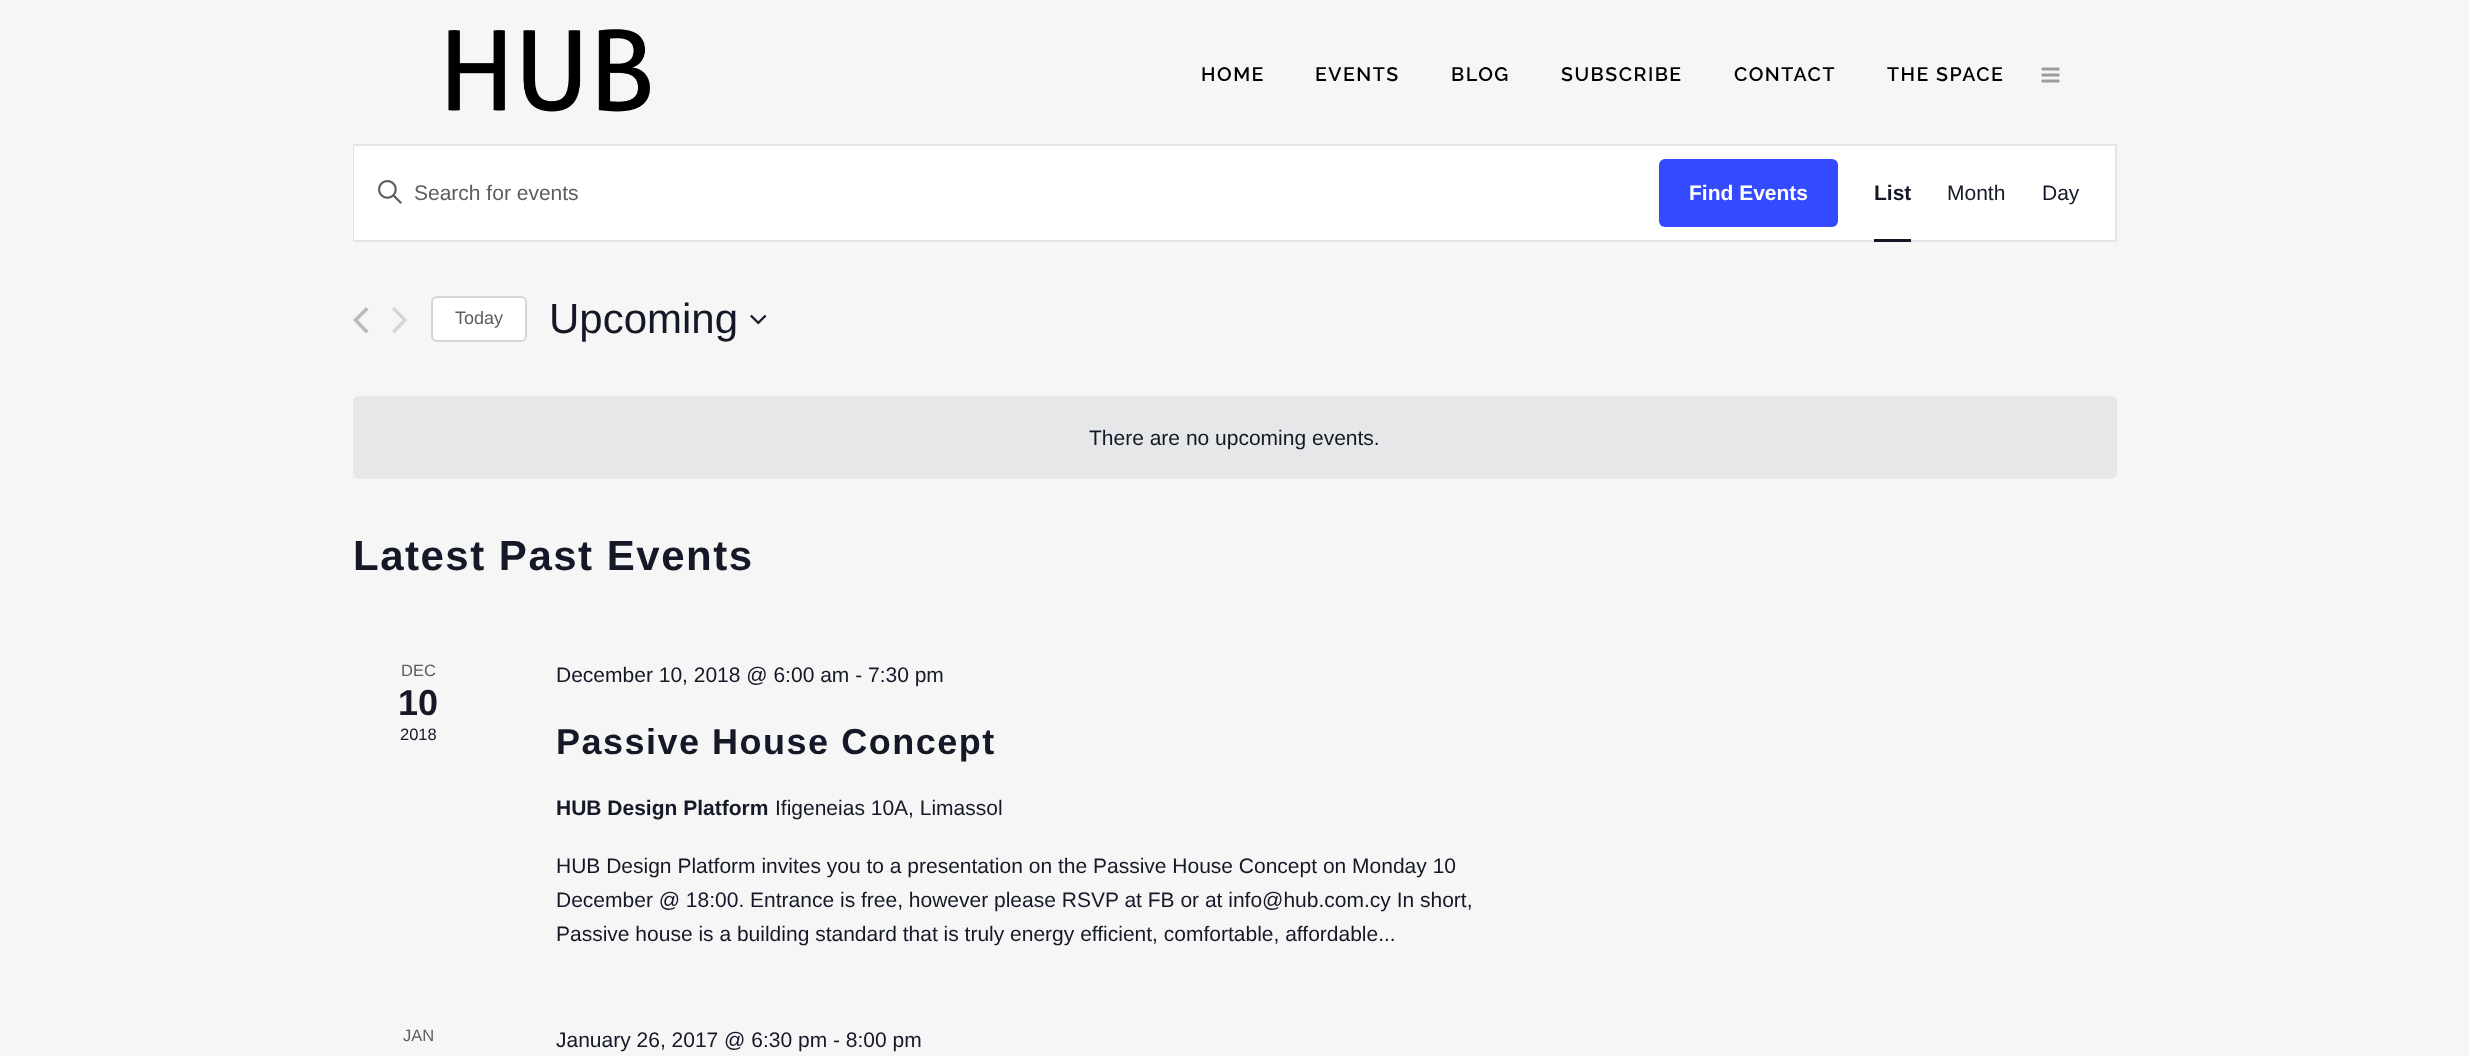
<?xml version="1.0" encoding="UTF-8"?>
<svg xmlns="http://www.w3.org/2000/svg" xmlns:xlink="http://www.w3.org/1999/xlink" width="2469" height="1056">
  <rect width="100%" height="100%" fill="#f6f6f6" />
  <image x="448" y="29" width="203" height="83" xlink:href="image1.png" />
  <image x="2041" y="67" width="19" height="16" xlink:href="image2.png" />
  <rect x="1838" y="146" width="277" height="94" fill="#ffffff" />
  <rect x="354" y="145" width="1762" height="96" fill="none" stroke="#e4e4e4" stroke-width="2" />
  <rect x="354" y="146" width="1484" height="94" fill="#ffffff" />
  <image x="378" y="180" width="24" height="24" xlink:href="image3.png" />
  <rect x="1659" y="159" width="179" height="68" rx="6" fill="#334aff" />
  <rect x="1874" y="239" width="37" height="3" fill="#141827" />
  <path d="M 368.5 331 l -2.5 2.5 l -13 -13.5 l 13 -13 l 2.5 2.5 l -10.5 10.5 z" fill="#bababa" />
  <path d="M 392 309.5 l 2.5 -2.5 l 13 13 l -13 13.5 l -2.5 -2.5 l 10.5 -11 z" fill="#d5d5d5" />
  <rect x="432" y="297" width="94" height="44" rx="5" fill="#ffffff" stroke="#d5d5d5" stroke-width="2" />
  <image x="750" y="314" width="17" height="11" xlink:href="image4.png" />
  <rect x="353" y="396" width="1764" height="83" rx="6" fill="#e6e7e8" />
  <text x="1201" y="81" style="font-family: Raleway; font-size: 19.5px; font-weight: 600; letter-spacing: 1.5px; fill: #000000">HOME</text>
  <text x="1315" y="81" style="font-family: Raleway; font-size: 19.5px; font-weight: 600; letter-spacing: 1.5px; fill: #000000">EVENTS</text>
  <text x="1451" y="81" style="font-family: Raleway; font-size: 19.5px; font-weight: 600; letter-spacing: 1.5px; fill: #000000">BLOG</text>
  <text x="1561" y="81" style="font-family: Raleway; font-size: 19.5px; font-weight: 600; letter-spacing: 1.5px; fill: #000000">SUBSCRIBE</text>
  <text x="1734" y="81" style="font-family: Raleway; font-size: 19.5px; font-weight: 600; letter-spacing: 1.5px; fill: #000000">CONTACT</text>
  <text x="1887" y="81" style="font-family: Raleway; font-size: 19.5px; font-weight: 600; letter-spacing: 1.5px; fill: #000000">THE SPACE</text>
  <text x="414" y="200" style="font-family: Liberation Sans; font-size: 21px; fill: #5d5d5d">Search for events</text>
  <text x="1689" y="200" style="font-family: Liberation Sans; font-size: 21px; font-weight: bold; fill: #ffffff">Find Events</text>
  <text x="1874" y="200" style="font-family: Liberation Sans; font-size: 21px; font-weight: bold; fill: #141827">List</text>
  <text x="1947" y="200" style="font-family: Liberation Sans; font-size: 21px; fill: #141827">Month</text>
  <text x="2042" y="200" style="font-family: Liberation Sans; font-size: 21px; fill: #141827">Day</text>
  <text x="455" y="324" style="font-family: Liberation Sans; font-size: 18px; fill: #5d5d5d">Today</text>
  <text x="549" y="333" style="font-family: Liberation Sans; font-size: 42px; fill: #141827">Upcoming</text>
  <text x="1089" y="445" style="font-family: Liberation Sans; font-size: 21px; fill: #141827">There are no upcoming events.</text>
  <text x="353" y="570" style="font-family: Liberation Sans; font-size: 42px; font-weight: bold; letter-spacing: 1.5px; fill: #141827">Latest Past Events</text>
  <text x="401" y="676" style="font-family: Liberation Sans; font-size: 16.5px; fill: #5d5d5d">DEC</text>
  <text x="398" y="715" style="font-family: Liberation Sans; font-size: 36px; font-weight: bold; fill: #141827">10</text>
  <text x="400" y="740" style="font-family: Liberation Sans; font-size: 16.5px; fill: #141827">2018</text>
  <text x="556" y="682" style="font-family: Liberation Sans; font-size: 21px; fill: #141827">December 10, 2018 @ 6:00 am - 7:30 pm</text>
  <text x="556" y="754" style="font-family: Liberation Sans; font-size: 36px; font-weight: bold; letter-spacing: 1.5px; fill: #141827">Passive House Concept</text>
  <text x="556" y="815" style="font-family: Liberation Sans; font-size: 21px; font-weight: bold; fill: #141827">HUB Design Platform</text>
  <text x="775" y="815" style="font-family: Liberation Sans; font-size: 21px; fill: #141827">Ifigeneias 10A, Limassol</text>
  <text x="556" y="873" style="font-family: Liberation Sans; font-size: 21px; fill: #141827">HUB Design Platform invites you to a presentation on the Passive House Concept on Monday 10</text>
  <text x="556" y="907" style="font-family: Liberation Sans; font-size: 21px; fill: #141827">December @ 18:00. Entrance is free, however please RSVP at FB or at info@hub.com.cy In short,</text>
  <text x="556" y="941" style="font-family: Liberation Sans; font-size: 21px; fill: #141827">Passive house is a building standard that is truly energy efficient, comfortable, affordable...</text>
  <text x="403" y="1041" style="font-family: Liberation Sans; font-size: 16.5px; fill: #5d5d5d">JAN</text>
  <text x="556" y="1047" style="font-family: Liberation Sans; font-size: 21px; fill: #141827">January 26, 2017 @ 6:30 pm - 8:00 pm</text>
</svg>
